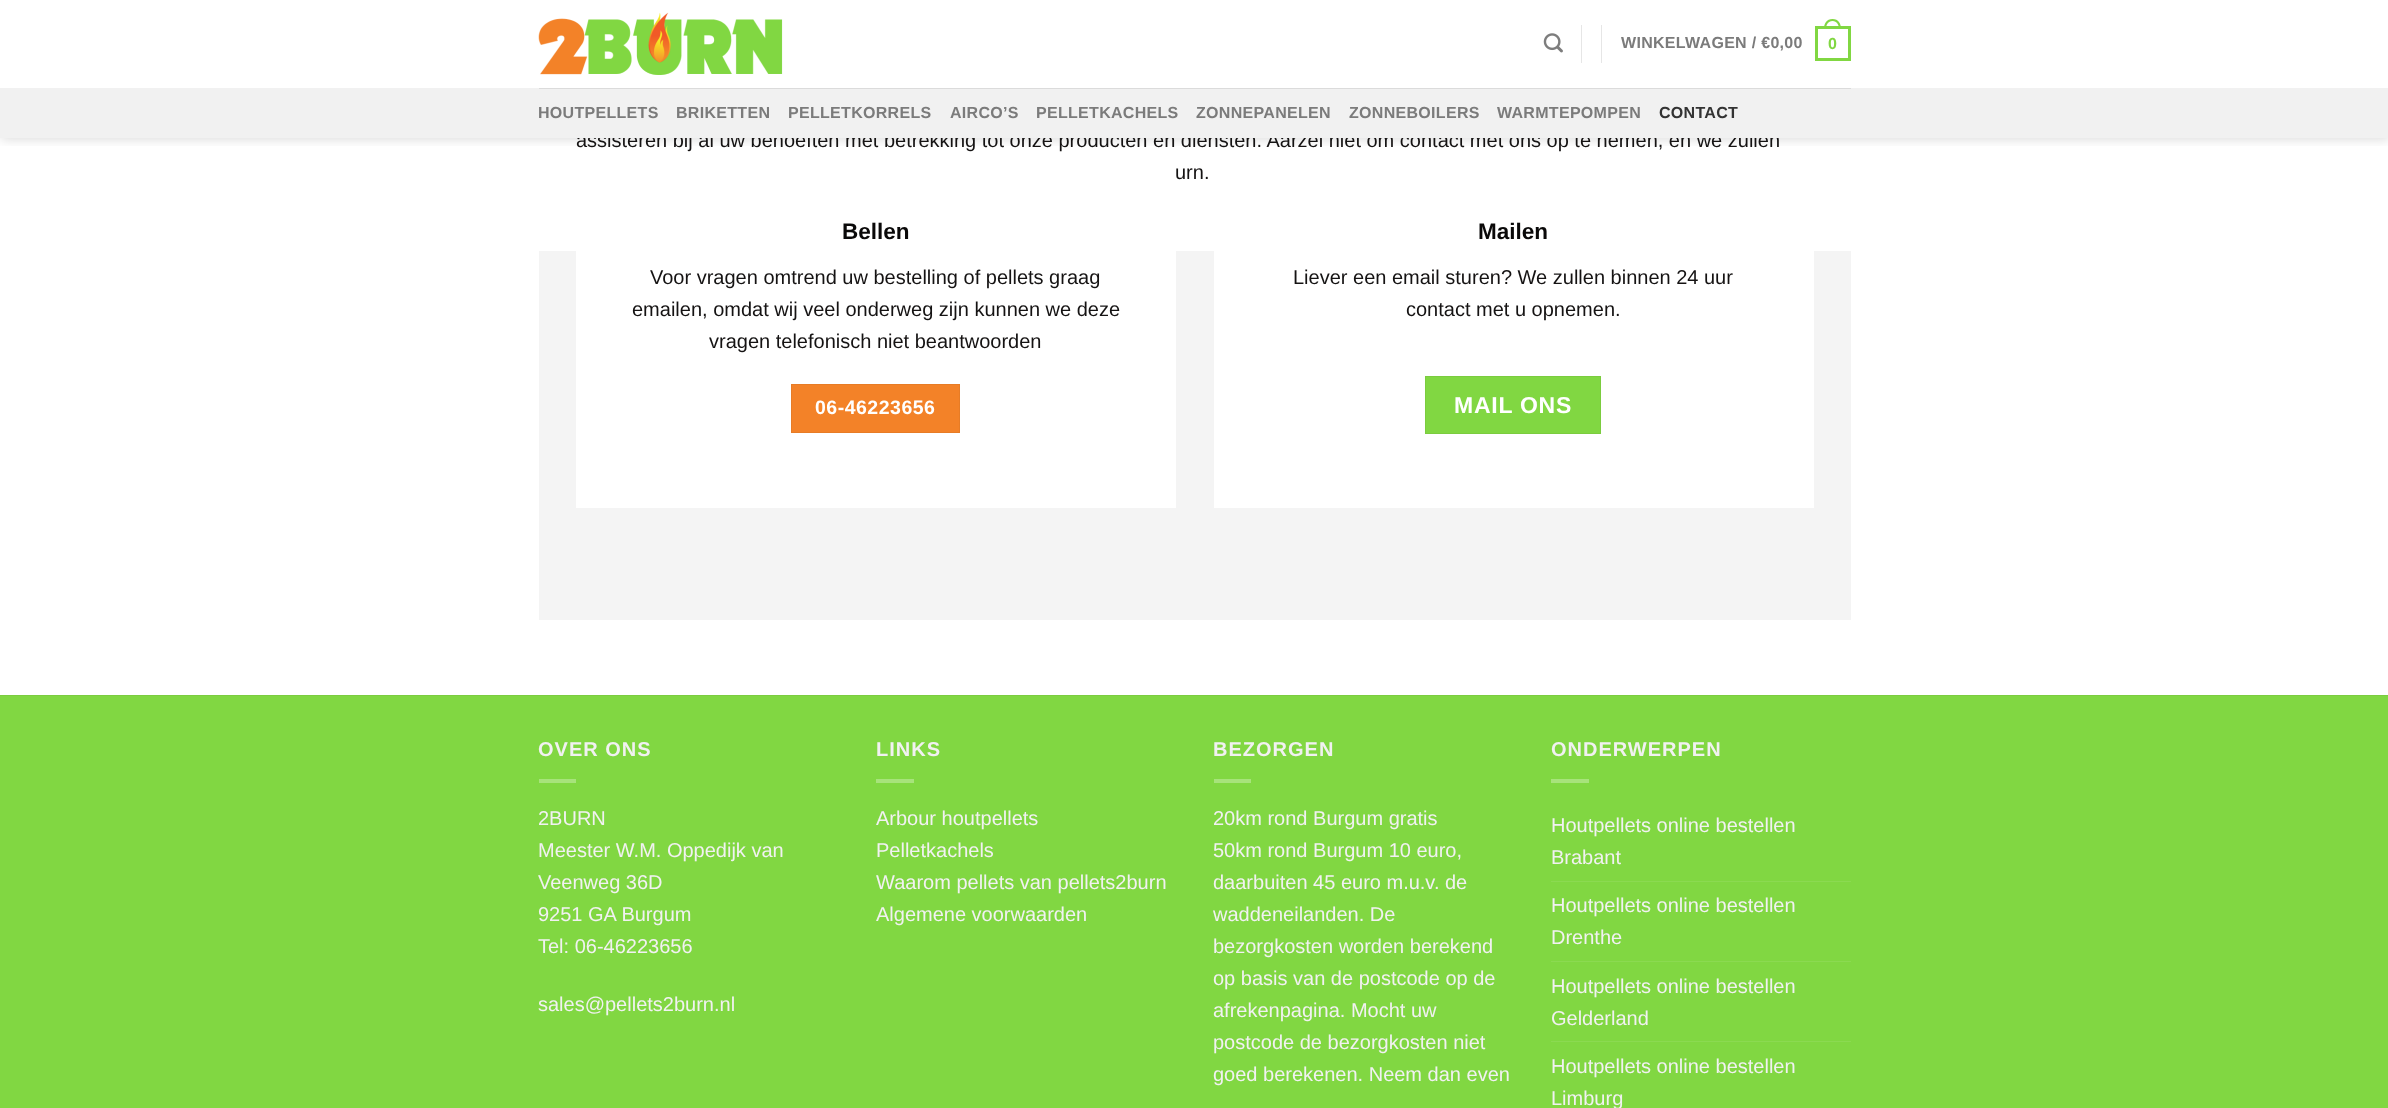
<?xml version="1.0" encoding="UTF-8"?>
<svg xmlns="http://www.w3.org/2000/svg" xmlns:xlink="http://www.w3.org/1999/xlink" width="2388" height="1108">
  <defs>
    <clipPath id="clip1"><rect x="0" y="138" width="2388" height="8" /></clipPath>
  </defs>
  <rect width="100%" height="100%" fill="#ffffff" />
  <g clip-path="url(#clip1)">
    <rect x="1" y="1" width="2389" height="138" fill="#000000" fill-opacity="0.15" filter="blur(6px)" />
  </g>
  <image x="538" y="12" width="245" height="63" xlink:href="image1.png" />
  <image x="1543" y="33" width="20" height="20" xlink:href="image2.png" />
  <rect x="1581" y="25" width="1" height="38" fill="#e6e6e6" />
  <rect x="1601" y="25" width="1" height="38" fill="#e6e6e6" />
  <rect x="1816.5" y="27.5" width="33" height="32" fill="none" stroke="#81d742" stroke-width="3" />
  <path d="M 1832.5 19 c 6 0 8.5 4.5 8.5 10 h -17 c 0 -5.5 2.5 -10 8.5 -10 z m 0 2 c 4.5 0 6.5 4 6.5 8 h -13 c 0 -4 2 -8 6.5 -8 z" fill="#81d742" fill-rule="evenodd" />
  <rect x="539" y="251" width="1312" height="369" fill="#f4f4f4" />
  <rect x="576" y="251" width="600" height="257" fill="#ffffff" />
  <rect x="791.5" y="384.5" width="168" height="48" fill="#f38228" stroke="#e77c26" />
  <rect x="1214" y="251" width="600" height="257" fill="#ffffff" />
  <rect x="1425.5" y="376.5" width="175" height="57" fill="#81d742" stroke="#7bcc3f" />
  <rect y="696" width="2388" height="412" fill="#81d742" />
  <rect y="695" width="2388" height="1" fill="#7bcc3f" />
  <rect x="539" y="779" width="37" height="4" fill="#a7e37b" />
  <rect x="876" y="779" width="38" height="4" fill="#a7e37b" />
  <rect x="1214" y="779" width="37" height="4" fill="#a7e37b" />
  <rect x="1551" y="779" width="38" height="4" fill="#a7e37b" />
  <rect x="1551" y="881" width="300" height="1" fill="#8bda51" />
  <rect x="1551" y="961" width="300" height="1" fill="#8bda51" />
  <rect x="1551" y="1041" width="300" height="1" fill="#8bda51" />
  <text x="1621" y="48" style="font-family: Liberation Sans; font-size: 16px; font-weight: bold; letter-spacing: 0.3px; fill: #7b7b7b">WINKELWAGEN / €0,00</text>
  <text x="1828" y="49" style="font-family: Liberation Sans; font-size: 16px; font-weight: bold; letter-spacing: 0.3px; fill: #81d742">0</text>
  <text x="576" y="147" style="font-family: Liberation Sans; font-size: 20px; fill: #151313">assisteren bij al uw behoeften met betrekking tot onze producten en diensten. Aarzel niet om contact met ons op te nemen, en we zullen</text>
  <rect y="88" width="2388" height="50" fill="#f1f1f1" />
  <rect x="539" y="88" width="1312" height="1" fill="#dbdbdb" />
  <text x="1659" y="118" style="font-family: Liberation Sans; font-size: 16px; font-weight: bold; letter-spacing: 0.3px; fill: #333333">CONTACT</text>
  <text x="1497" y="118" style="font-family: Liberation Sans; font-size: 16px; font-weight: bold; letter-spacing: 0.3px; fill: #7b7b7b">WARMTEPOMPEN</text>
  <text x="1349" y="118" style="font-family: Liberation Sans; font-size: 16px; font-weight: bold; letter-spacing: 0.3px; fill: #7b7b7b">ZONNEBOILERS</text>
  <text x="1196" y="118" style="font-family: Liberation Sans; font-size: 16px; font-weight: bold; letter-spacing: 0.3px; fill: #7b7b7b">ZONNEPANELEN</text>
  <text x="1036" y="118" style="font-family: Liberation Sans; font-size: 16px; font-weight: bold; letter-spacing: 0.3px; fill: #7b7b7b">PELLETKACHELS</text>
  <text x="950" y="118" style="font-family: Liberation Sans; font-size: 16px; font-weight: bold; letter-spacing: 0.3px; fill: #7b7b7b">AIRCO’S</text>
  <text x="788" y="118" style="font-family: Liberation Sans; font-size: 16px; font-weight: bold; letter-spacing: 0.3px; fill: #7b7b7b">PELLETKORRELS</text>
  <text x="676" y="118" style="font-family: Liberation Sans; font-size: 16px; font-weight: bold; letter-spacing: 0.3px; fill: #7b7b7b">BRIKETTEN</text>
  <text x="538" y="118" style="font-family: Liberation Sans; font-size: 16px; font-weight: bold; letter-spacing: 0.3px; fill: #7b7b7b">HOUTPELLETS</text>
  <text x="1175" y="179" style="font-family: Liberation Sans; font-size: 20px; fill: #151313">urn.</text>
  <text x="842" y="239" style="font-family: Liberation Sans; font-size: 22.5px; font-weight: bold; fill: #0a0909">Bellen</text>
  <text x="650" y="284" style="font-family: Liberation Sans; font-size: 20px; fill: #151313">Voor vragen omtrend uw bestelling of pellets graag</text>
  <text x="632" y="316" style="font-family: Liberation Sans; font-size: 20px; fill: #151313">emailen, omdat wij veel onderweg zijn kunnen we deze</text>
  <text x="709" y="348" style="font-family: Liberation Sans; font-size: 20px; fill: #151313">vragen telefonisch niet beantwoorden</text>
  <text x="815" y="414" style="font-family: Liberation Sans; font-size: 19.5px; font-weight: bold; letter-spacing: 0.5px; fill: #ffffff">06-46223656</text>
  <text x="1478" y="239" style="font-family: Liberation Sans; font-size: 22.5px; font-weight: bold; fill: #0a0909">Mailen</text>
  <text x="1293" y="284" style="font-family: Liberation Sans; font-size: 20px; fill: #151313">Liever een email sturen? We zullen binnen 24 uur</text>
  <text x="1406" y="316" style="font-family: Liberation Sans; font-size: 20px; fill: #151313">contact met u opnemen.</text>
  <text x="1454" y="413" style="font-family: Liberation Sans; font-size: 23px; font-weight: bold; letter-spacing: 0.75px; fill: #ffffff">MAIL ONS</text>
  <text x="538" y="756" style="font-family: Liberation Sans; font-size: 20px; font-weight: bold; letter-spacing: 1px; fill: #f1f1f1">OVER ONS</text>
  <text x="538" y="825" style="font-family: Liberation Sans; font-size: 20px; fill: #f1f1f1">2BURN</text>
  <text x="538" y="857" style="font-family: Liberation Sans; font-size: 20px; fill: #f1f1f1">Meester W.M. Oppedijk van</text>
  <text x="538" y="889" style="font-family: Liberation Sans; font-size: 20px; fill: #f1f1f1">Veenweg 36D</text>
  <text x="538" y="921" style="font-family: Liberation Sans; font-size: 20px; fill: #f1f1f1">9251 GA Burgum</text>
  <text x="538" y="953" style="font-family: Liberation Sans; font-size: 20px; fill: #f1f1f1">Tel: 06-46223656</text>
  <text x="538" y="1011" style="font-family: Liberation Sans; font-size: 20px; fill: #f1f1f1">sales@pellets2burn.nl</text>
  <text x="876" y="756" style="font-family: Liberation Sans; font-size: 20px; font-weight: bold; letter-spacing: 1px; fill: #f1f1f1">LINKS</text>
  <text x="876" y="825" style="font-family: Liberation Sans; font-size: 20px; fill: #f1f1f1">Arbour houtpellets</text>
  <text x="876" y="857" style="font-family: Liberation Sans; font-size: 20px; fill: #f1f1f1">Pelletkachels</text>
  <text x="876" y="889" style="font-family: Liberation Sans; font-size: 20px; fill: #f1f1f1">Waarom pellets van pellets2burn</text>
  <text x="876" y="921" style="font-family: Liberation Sans; font-size: 20px; fill: #f1f1f1">Algemene voorwaarden</text>
  <text x="1213" y="756" style="font-family: Liberation Sans; font-size: 20px; font-weight: bold; letter-spacing: 1px; fill: #f1f1f1">BEZORGEN</text>
  <text x="1213" y="825" style="font-family: Liberation Sans; font-size: 20px; fill: #f1f1f1">20km rond Burgum gratis</text>
  <text x="1213" y="857" style="font-family: Liberation Sans; font-size: 20px; fill: #f1f1f1">50km rond Burgum 10 euro,</text>
  <text x="1213" y="889" style="font-family: Liberation Sans; font-size: 20px; fill: #f1f1f1">daarbuiten 45 euro m.u.v. de</text>
  <text x="1213" y="921" style="font-family: Liberation Sans; font-size: 20px; fill: #f1f1f1">waddeneilanden. De</text>
  <text x="1213" y="953" style="font-family: Liberation Sans; font-size: 20px; fill: #f1f1f1">bezorgkosten worden berekend</text>
  <text x="1213" y="985" style="font-family: Liberation Sans; font-size: 20px; fill: #f1f1f1">op basis van de postcode op de</text>
  <text x="1213" y="1017" style="font-family: Liberation Sans; font-size: 20px; fill: #f1f1f1">afrekenpagina. Mocht uw</text>
  <text x="1213" y="1049" style="font-family: Liberation Sans; font-size: 20px; fill: #f1f1f1">postcode de bezorgkosten niet</text>
  <text x="1213" y="1081" style="font-family: Liberation Sans; font-size: 20px; fill: #f1f1f1">goed berekenen. Neem dan even</text>
  <text x="1551" y="756" style="font-family: Liberation Sans; font-size: 20px; font-weight: bold; letter-spacing: 1px; fill: #f1f1f1">ONDERWERPEN</text>
  <text x="1551" y="832" style="font-family: Liberation Sans; font-size: 20px; fill: #f1f1f1">Houtpellets online bestellen</text>
  <text x="1551" y="864" style="font-family: Liberation Sans; font-size: 20px; fill: #f1f1f1">Brabant</text>
  <text x="1551" y="912" style="font-family: Liberation Sans; font-size: 20px; fill: #f1f1f1">Houtpellets online bestellen</text>
  <text x="1551" y="944" style="font-family: Liberation Sans; font-size: 20px; fill: #f1f1f1">Drenthe</text>
  <text x="1551" y="993" style="font-family: Liberation Sans; font-size: 20px; fill: #f1f1f1">Houtpellets online bestellen</text>
  <text x="1551" y="1025" style="font-family: Liberation Sans; font-size: 20px; fill: #f1f1f1">Gelderland</text>
  <text x="1551" y="1073" style="font-family: Liberation Sans; font-size: 20px; fill: #f1f1f1">Houtpellets online bestellen</text>
  <text x="1551" y="1105" style="font-family: Liberation Sans; font-size: 20px; fill: #f1f1f1">Limburg</text>
</svg>
